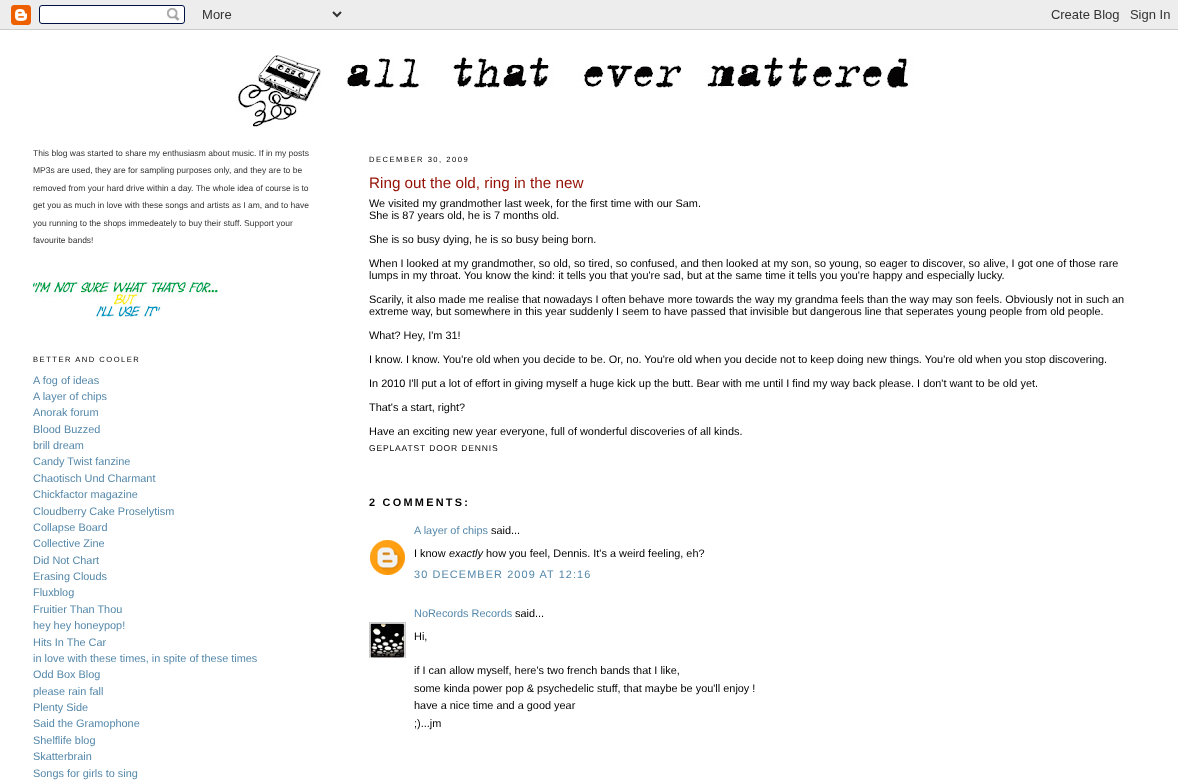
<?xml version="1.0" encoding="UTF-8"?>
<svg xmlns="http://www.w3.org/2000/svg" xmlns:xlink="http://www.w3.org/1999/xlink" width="1178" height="782">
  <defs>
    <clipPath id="clip1"><rect x="369" y="622" width="37" height="36" /></clipPath>
  </defs>
  <rect width="100%" height="100%" fill="#ffffff" />
  <image x="0" y="0" width="1178" height="30" xlink:href="image1.png" />
  <image x="236" y="55" width="678" height="73" xlink:href="image2.png" />
  <image x="33" y="282" width="185" height="35" xlink:href="image3.png" />
  <image x="370" y="540" width="35" height="35" xlink:href="image4.png" />
  <g clip-path="url(#clip1)">
    <rect x="369.5" y="622.5" width="36" height="36" fill="none" stroke="#cccccc" />
  </g>
  <image x="370" y="623" width="35" height="35" xlink:href="image5.png" />
  <text x="33" y="156" style="font-family: Liberation Sans; font-size: 8.5px; fill: #333333">This blog was started to share my enthusiasm about music. If in my posts</text>
  <text x="33" y="173" style="font-family: Liberation Sans; font-size: 8.5px; fill: #333333">MP3s are used, they are for sampling purposes only, and they are to be</text>
  <text x="33" y="191" style="font-family: Liberation Sans; font-size: 8.5px; fill: #333333">removed from your hard drive within a day. The whole idea of course is to</text>
  <text x="33" y="208" style="font-family: Liberation Sans; font-size: 8.5px; fill: #333333">get you as much in love with these songs and artists as I am, and to have</text>
  <text x="33" y="226" style="font-family: Liberation Sans; font-size: 8.5px; fill: #333333">you running to the shops immedeately to buy their stuff. Support your</text>
  <text x="33" y="243" style="font-family: Liberation Sans; font-size: 8.5px; fill: #333333">favourite bands!</text>
  <text x="33" y="362" style="font-family: Liberation Sans; font-size: 7.6px; letter-spacing: 1.5px; fill: #000000">BETTER AND COOLER</text>
  <text x="33" y="384" style="font-family: Liberation Sans; font-size: 10.92px; fill: #5588aa">A fog of ideas</text>
  <text x="33" y="400" style="font-family: Liberation Sans; font-size: 10.92px; fill: #5588aa">A layer of chips</text>
  <text x="33" y="416" style="font-family: Liberation Sans; font-size: 10.92px; fill: #5588aa">Anorak forum</text>
  <text x="33" y="433" style="font-family: Liberation Sans; font-size: 10.92px; fill: #5588aa">Blood Buzzed</text>
  <text x="33" y="449" style="font-family: Liberation Sans; font-size: 10.92px; fill: #5588aa">brill dream</text>
  <text x="33" y="465" style="font-family: Liberation Sans; font-size: 10.92px; fill: #5588aa">Candy Twist fanzine</text>
  <text x="33" y="482" style="font-family: Liberation Sans; font-size: 10.92px; fill: #5588aa">Chaotisch Und Charmant</text>
  <text x="33" y="498" style="font-family: Liberation Sans; font-size: 10.92px; fill: #5588aa">Chickfactor magazine</text>
  <text x="33" y="515" style="font-family: Liberation Sans; font-size: 10.92px; fill: #5588aa">Cloudberry Cake Proselytism</text>
  <text x="33" y="531" style="font-family: Liberation Sans; font-size: 10.92px; fill: #5588aa">Collapse Board</text>
  <text x="33" y="547" style="font-family: Liberation Sans; font-size: 10.92px; fill: #5588aa">Collective Zine</text>
  <text x="33" y="564" style="font-family: Liberation Sans; font-size: 10.92px; fill: #5588aa">Did Not Chart</text>
  <text x="33" y="580" style="font-family: Liberation Sans; font-size: 10.92px; fill: #5588aa">Erasing Clouds</text>
  <text x="33" y="596" style="font-family: Liberation Sans; font-size: 10.92px; fill: #5588aa">Fluxblog</text>
  <text x="33" y="613" style="font-family: Liberation Sans; font-size: 10.92px; fill: #5588aa">Fruitier Than Thou</text>
  <text x="33" y="629" style="font-family: Liberation Sans; font-size: 10.92px; fill: #5588aa">hey hey honeypop!</text>
  <text x="33" y="646" style="font-family: Liberation Sans; font-size: 10.92px; fill: #5588aa">Hits In The Car</text>
  <text x="33" y="662" style="font-family: Liberation Sans; font-size: 10.92px; fill: #5588aa">in love with these times, in spite of these times</text>
  <text x="33" y="678" style="font-family: Liberation Sans; font-size: 10.92px; fill: #5588aa">Odd Box Blog</text>
  <text x="33" y="695" style="font-family: Liberation Sans; font-size: 10.92px; fill: #5588aa">please rain fall</text>
  <text x="33" y="711" style="font-family: Liberation Sans; font-size: 10.92px; fill: #5588aa">Plenty Side</text>
  <text x="33" y="727" style="font-family: Liberation Sans; font-size: 10.92px; fill: #5588aa">Said the Gramophone</text>
  <text x="33" y="744" style="font-family: Liberation Sans; font-size: 10.92px; fill: #5588aa">Shelflife blog</text>
  <text x="33" y="760" style="font-family: Liberation Sans; font-size: 10.92px; fill: #5588aa">Skatterbrain</text>
  <text x="33" y="777" style="font-family: Liberation Sans; font-size: 10.92px; fill: #5588aa">Songs for girls to sing</text>
  <text x="369" y="162" style="font-family: Liberation Sans; font-size: 7.6px; letter-spacing: 1.5px; fill: #000000">DECEMBER 30, 2009</text>
  <text x="369" y="188" style="font-family: Liberation Sans; font-size: 15.25px; fill: #940f04">Ring out the old, ring in the new</text>
  <text x="369" y="207" style="font-family: Liberation Sans; font-size: 10.92px; fill: #000000">We visited my grandmother last week, for the first time with our Sam.</text>
  <text x="369" y="219" style="font-family: Liberation Sans; font-size: 10.92px; fill: #000000">She is 87 years old, he is 7 months old.</text>
  <text x="369" y="243" style="font-family: Liberation Sans; font-size: 10.92px; fill: #000000">She is so busy dying, he is so busy being born.</text>
  <text x="369" y="267" style="font-family: Liberation Sans; font-size: 10.92px; fill: #000000">When I looked at my grandmother, so old, so tired, so confused, and then looked at my son, so young, so eager to discover, so alive, I got one of those rare</text>
  <text x="369" y="279" style="font-family: Liberation Sans; font-size: 10.92px; fill: #000000">lumps in my throat. You know the kind: it tells you that you're sad, but at the same time it tells you you're happy and especially lucky.</text>
  <text x="369" y="303" style="font-family: Liberation Sans; font-size: 10.92px; fill: #000000">Scarily, it also made me realise that nowadays I often behave more towards the way my grandma feels than the way may son feels. Obviously not in such an</text>
  <text x="369" y="315" style="font-family: Liberation Sans; font-size: 10.92px; fill: #000000">extreme way, but somewhere in this year suddenly I seem to have passed that invisible but dangerous line that seperates young people from old people.</text>
  <text x="369" y="339" style="font-family: Liberation Sans; font-size: 10.92px; fill: #000000">What? Hey, I'm 31!</text>
  <text x="369" y="363" style="font-family: Liberation Sans; font-size: 10.92px; fill: #000000">I know. I know. You're old when you decide to be. Or, no. You're old when you decide not to keep doing new things. You're old when you stop discovering.</text>
  <text x="369" y="387" style="font-family: Liberation Sans; font-size: 10.92px; fill: #000000">In 2010 I'll put a lot of effort in giving myself a huge kick up the butt. Bear with me until I find my way back please. I don't want to be old yet.</text>
  <text x="369" y="411" style="font-family: Liberation Sans; font-size: 10.92px; fill: #000000">That's a start, right?</text>
  <text x="369" y="435" style="font-family: Liberation Sans; font-size: 10.92px; fill: #000000">Have an exciting new year everyone, full of wonderful discoveries of all kinds.</text>
  <text x="369" y="451" style="font-family: Liberation Sans; font-size: 8.5px; letter-spacing: 0.85px; fill: #000000">GEPLAATST DOOR DENNIS</text>
  <text x="369" y="506" style="font-family: Liberation Sans; font-size: 10.92px; font-weight: bold; letter-spacing: 2.25px; fill: #000000">2 COMMENTS:</text>
  <text x="414" y="534" style="font-family: Liberation Sans; font-size: 10.92px; fill: #5588aa">A layer of chips</text>
  <text x="491" y="534" style="font-family: Liberation Sans; font-size: 10.92px; fill: #000000">said...</text>
  <text x="414" y="557" style="font-family: Liberation Sans; font-size: 10.92px; fill: #000000">I know</text>
  <text x="449" y="557" style="font-family: Liberation Sans; font-size: 10.92px; font-style: italic; fill: #000000">exactly</text>
  <text x="486" y="557" style="font-family: Liberation Sans; font-size: 10.92px; fill: #000000">how you feel, Dennis. It's a weird feeling, eh?</text>
  <text x="414" y="578" style="font-family: Liberation Sans; font-size: 10.92px; letter-spacing: 1.1px; fill: #5588aa">30 DECEMBER 2009 AT 12:16</text>
  <text x="414" y="617" style="font-family: Liberation Sans; font-size: 10.92px; fill: #5588aa">NoRecords Records</text>
  <text x="515" y="617" style="font-family: Liberation Sans; font-size: 10.92px; fill: #000000">said...</text>
  <text x="414" y="640" style="font-family: Liberation Sans; font-size: 10.92px; fill: #000000">Hi,</text>
  <text x="414" y="674" style="font-family: Liberation Sans; font-size: 10.92px; fill: #000000">if I can allow myself, here's two french bands that I like,</text>
  <text x="414" y="692" style="font-family: Liberation Sans; font-size: 10.92px; fill: #000000">some kinda power pop &amp; psychedelic stuff, that maybe be you'll enjoy !</text>
  <text x="414" y="709" style="font-family: Liberation Sans; font-size: 10.92px; fill: #000000">have a nice time and a good year</text>
  <text x="414" y="727" style="font-family: Liberation Sans; font-size: 10.92px; fill: #000000">;)...jm</text>
</svg>
